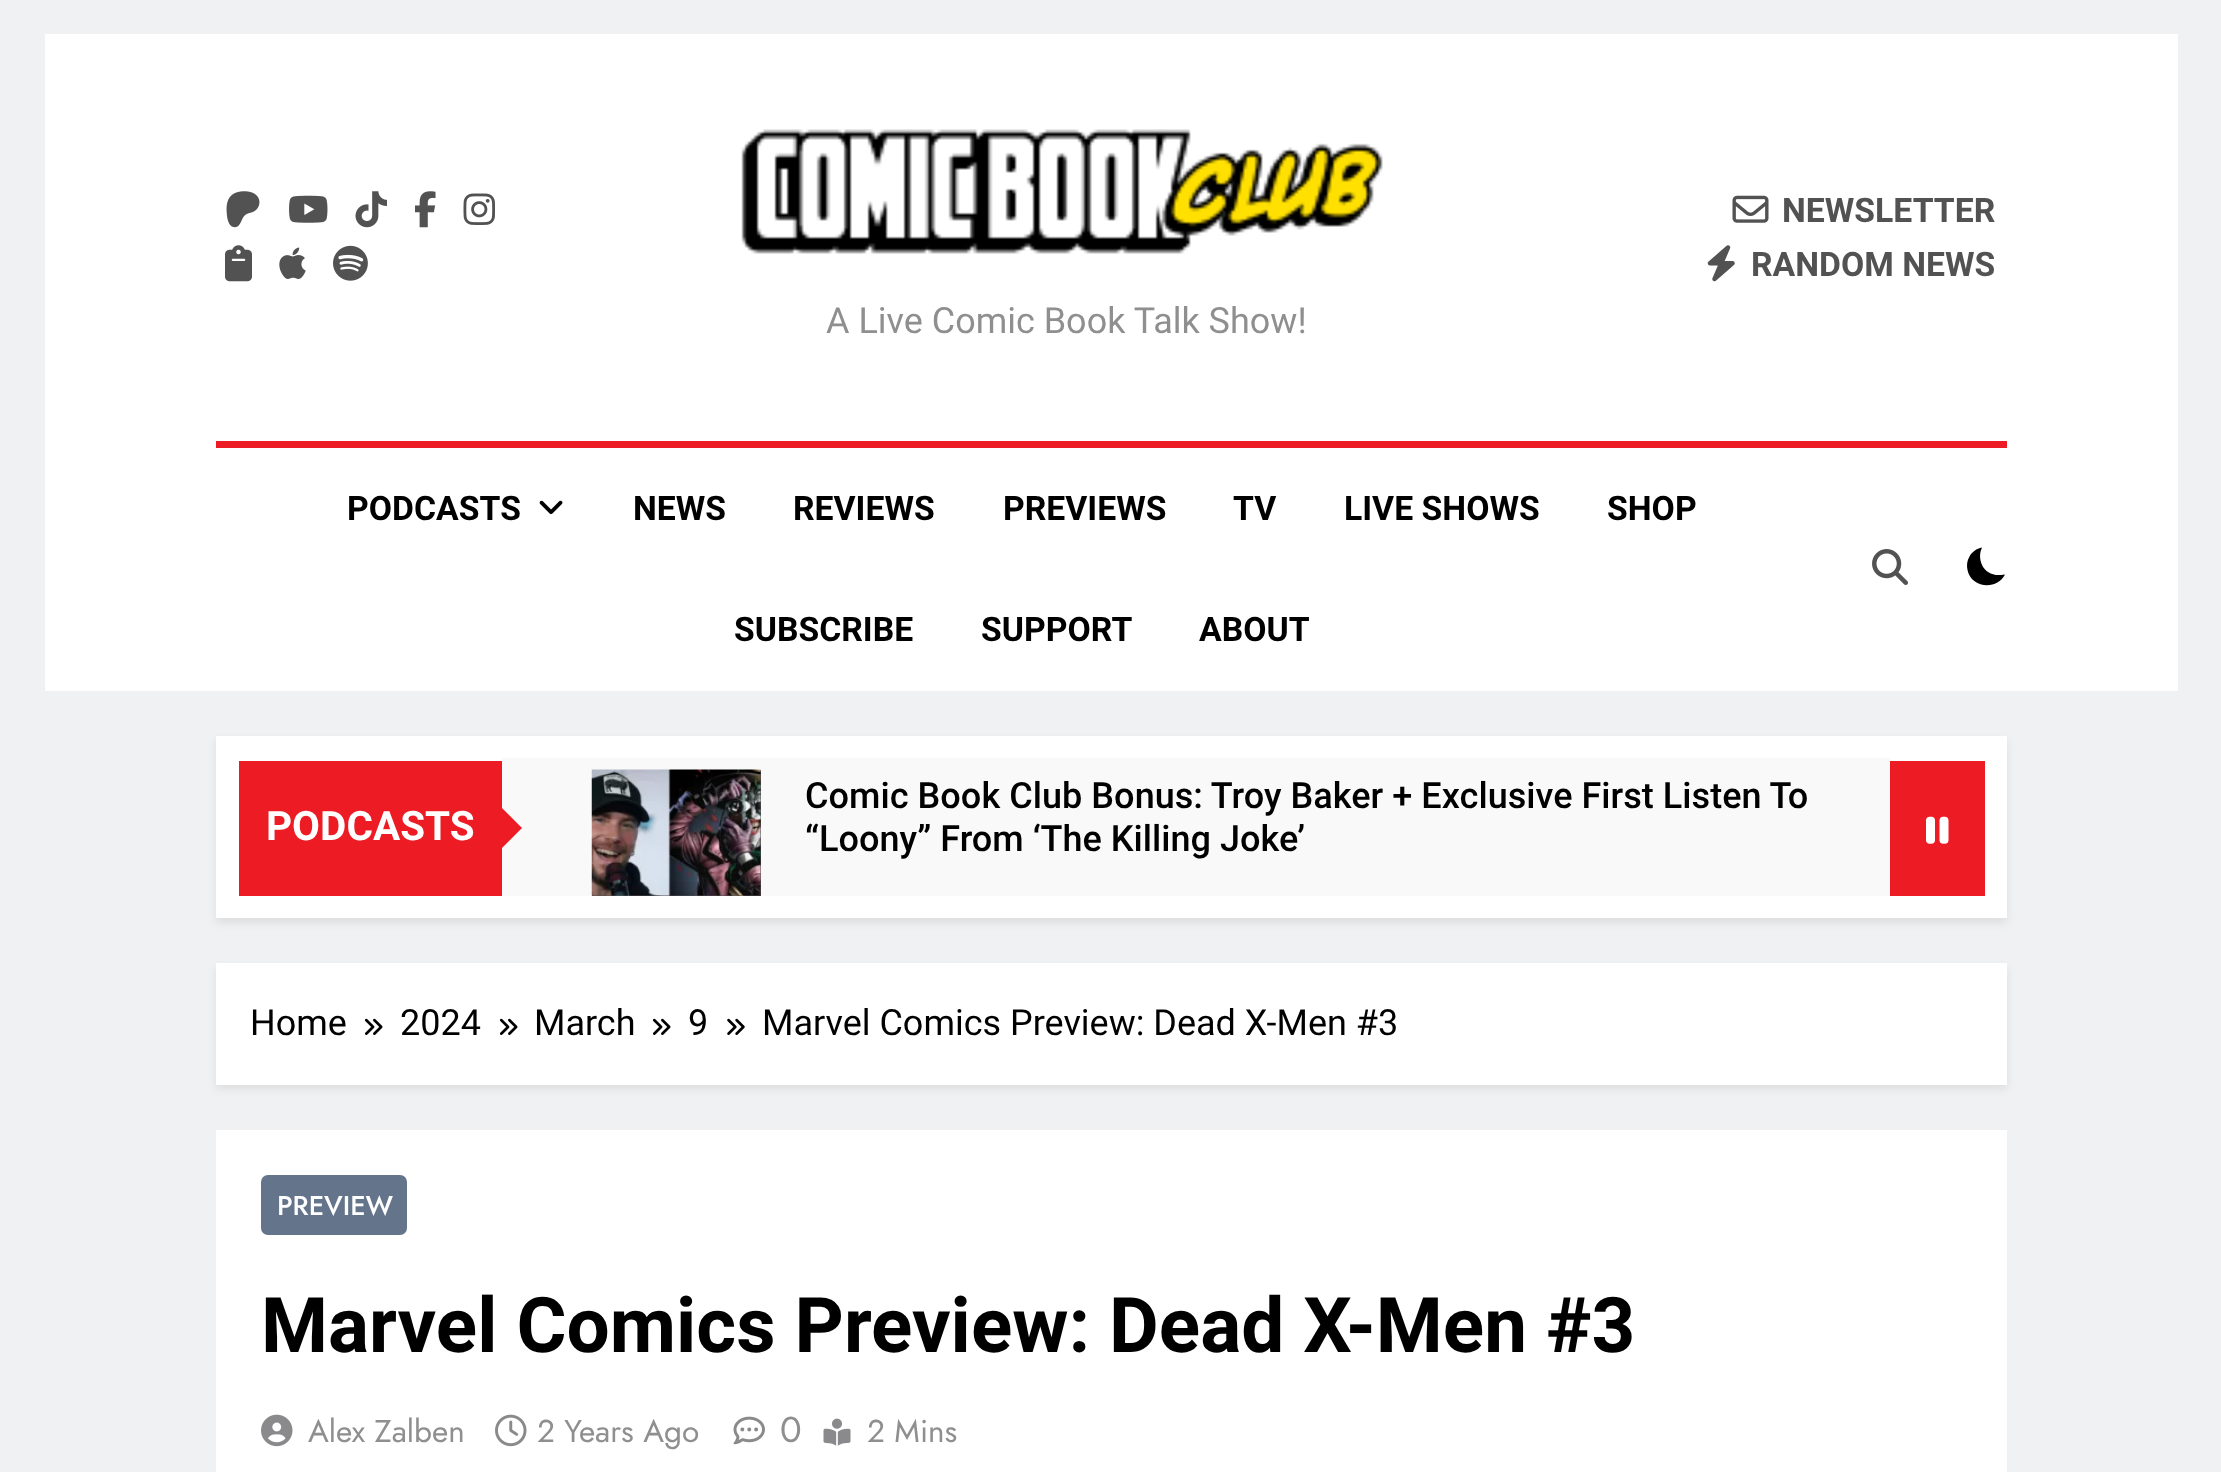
<?xml version="1.0" encoding="UTF-8"?>
<svg xmlns="http://www.w3.org/2000/svg" xmlns:xlink="http://www.w3.org/1999/xlink" width="2221" height="1472">
  <rect width="100%" height="100%" fill="#f0f1f2" />
  <rect x="45" y="34" width="2133" height="657" fill="#ffffff" />
  <image x="226" y="191" width="34" height="37" xlink:href="image1.png" />
  <image x="289" y="195" width="39" height="28" xlink:href="image2.png" />
  <image x="355" y="191" width="32" height="37" xlink:href="image3.png" />
  <image x="415" y="191" width="21" height="37" xlink:href="image4.png" />
  <image x="463" y="193" width="32" height="32" xlink:href="image5.png" />
  <image x="225" y="245" width="27" height="37" xlink:href="image6.png" />
  <image x="279" y="247" width="27" height="32" xlink:href="image7.png" />
  <image x="333" y="245" width="35" height="36" xlink:href="image8.png" />
  <image x="1732" y="195" width="37" height="28" xlink:href="image9.png" />
  <image x="1707" y="245" width="28" height="37" xlink:href="image10.png" />
  <image x="741" y="129" width="642" height="125" xlink:href="image11.png" />
  <rect x="216" y="441" width="1791" height="7" fill="#ed1b24" />
  <image x="539" y="500" width="24" height="14" xlink:href="image12.png" />
  <image x="1872" y="549" width="36" height="36" xlink:href="image13.png" />
  <path d="M 2005 574.5 l -4 0.5 c -18 1.5 -24.5 -16 -19 -27.5 c -5.5 1 -10 4.5 -12.5 9 c -2.5 4 -3 9 -2 13.5 c 3.5 18 29.5 20.5 37.5 4.5 z" fill="#000000" />
  <rect x="216" y="740" width="1791" height="183" fill="#000000" fill-opacity="0.08" filter="blur(4.5px)" />
  <rect x="216" y="736" width="1791" height="182" fill="#ffffff" />
  <rect x="239" y="761" width="263" height="135" fill="#ed1b24" />
  <rect x="502" y="758" width="1388" height="138" fill="#f9f9f9" />
  <path d="M 500 850 v -44 l 22 22 z" fill="#ed1b24" />
  <rect x="592" y="770" width="169" height="126" fill="#554f53" />
  <image x="591" y="769" width="170" height="127" xlink:href="image14.png" />
  <rect x="1890" y="761" width="95" height="135" fill="#ed1b24" />
  <image x="1926" y="816" width="23" height="28" xlink:href="image15.png" />
  <rect x="216" y="968" width="1791" height="121" fill="#000000" fill-opacity="0.08" filter="blur(4.5px)" />
  <rect x="216" y="963" width="1791" height="122" fill="#ffffff" />
  <image x="365" y="1018" width="18" height="17" xlink:href="image16.png" />
  <image x="500" y="1018" width="18" height="17" xlink:href="image16.png" />
  <image x="653" y="1018" width="18" height="17" xlink:href="image16.png" />
  <image x="727" y="1018" width="18" height="17" xlink:href="image17.png" />
  <rect x="216" y="1130" width="1791" height="342" fill="#ffffff" />
  <rect x="261" y="1175" width="146" height="60" rx="7" fill="#64748b" />
  <image x="261" y="1414" width="32" height="33" xlink:href="image18.png" />
  <image x="495" y="1414" width="32" height="33" xlink:href="image19.png" />
  <image x="733" y="1416" width="32" height="29" xlink:href="image20.png" />
  <image x="823" y="1418" width="28" height="28" xlink:href="image21.png" />
  <text x="1782" y="222" style="font-family: Roboto; font-size: 33.75px; font-weight: bold; fill: #525252">NEWSLETTER</text>
  <text x="1751" y="276" style="font-family: Roboto; font-size: 33.75px; font-weight: bold; fill: #525252">RANDOM NEWS</text>
  <text x="826" y="333" style="font-family: Roboto; font-size: 36px; fill: #8f8f8f">A Live Comic Book Talk Show!</text>
  <text x="347" y="520" style="font-family: Roboto; font-size: 33.75px; font-weight: bold; fill: #000000">PODCASTS</text>
  <text x="633" y="520" style="font-family: Roboto; font-size: 33.75px; font-weight: bold; fill: #000000">NEWS</text>
  <text x="793" y="520" style="font-family: Roboto; font-size: 33.75px; font-weight: bold; fill: #000000">REVIEWS</text>
  <text x="1003" y="520" style="font-family: Roboto; font-size: 33.75px; font-weight: bold; fill: #000000">PREVIEWS</text>
  <text x="1233" y="520" style="font-family: Roboto; font-size: 33.75px; font-weight: bold; fill: #000000">TV</text>
  <text x="1344" y="520" style="font-family: Roboto; font-size: 33.75px; font-weight: bold; fill: #000000">LIVE SHOWS</text>
  <text x="1607" y="520" style="font-family: Roboto; font-size: 33.75px; font-weight: bold; fill: #000000">SHOP</text>
  <text x="734" y="641" style="font-family: Roboto; font-size: 33.75px; font-weight: bold; fill: #000000">SUBSCRIBE</text>
  <text x="981" y="641" style="font-family: Roboto; font-size: 33.75px; font-weight: bold; fill: #000000">SUPPORT</text>
  <text x="1199" y="641" style="font-family: Roboto; font-size: 33.75px; font-weight: bold; fill: #000000">ABOUT</text>
  <text x="266" y="840" style="font-family: Roboto; font-size: 40.5px; font-weight: bold; fill: #ffffff">PODCASTS</text>
  <text x="805" y="808" style="font-family: Roboto; font-size: 36.1px; font-weight: 500; fill: #000000">Comic Book Club Bonus: Troy Baker + Exclusive First Listen To</text>
  <text x="805" y="851" style="font-family: Roboto; font-size: 36.1px; font-weight: 500; fill: #000000">“Loony” From ‘The Killing Joke’</text>
  <text x="250" y="1035" style="font-family: Roboto; font-size: 36px; fill: #000000">Home</text>
  <text x="400" y="1035" style="font-family: Roboto; font-size: 36px; fill: #000000">2024</text>
  <text x="534" y="1035" style="font-family: Roboto; font-size: 36px; fill: #000000">March</text>
  <text x="688" y="1035" style="font-family: Roboto; font-size: 36px; fill: #000000">9</text>
  <text x="762" y="1035" style="font-family: Roboto; font-size: 36px; fill: #000000">Marvel Comics Preview: Dead X-Men #3</text>
  <text x="277" y="1215" style="font-family: Jost; font-size: 27px; font-weight: 500; fill: #ffffff">PREVIEW</text>
  <text x="261" y="1352" style="font-family: Roboto; font-size: 76.5px; font-weight: bold; fill: #000000">Marvel Comics Preview: Dead X-Men #3</text>
  <text x="308" y="1442" style="font-family: Jost; font-size: 31.5px; fill: #8f8f8f">Alex Zalben</text>
  <text x="537" y="1442" style="font-family: Jost; font-size: 31.5px; fill: #8f8f8f">2 Years Ago</text>
  <text x="780" y="1442" style="font-family: Jost; font-size: 36px; fill: #8f8f8f">0</text>
  <text x="867" y="1442" style="font-family: Jost; font-size: 31.5px; fill: #8f8f8f">2 Mins</text>
</svg>
